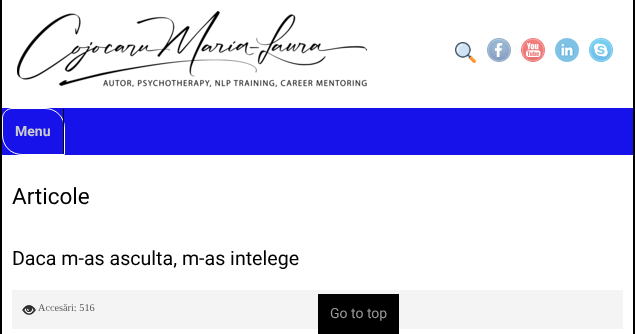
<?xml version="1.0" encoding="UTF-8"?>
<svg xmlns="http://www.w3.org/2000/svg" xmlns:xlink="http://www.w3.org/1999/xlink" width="635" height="334">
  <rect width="100%" height="100%" fill="#ffffff" />
  <rect x="633" width="2" height="334" fill="#000000" />
  <rect width="2" height="334" fill="#000000" />
  <image x="17" y="11" width="350" height="76" xlink:href="image1.png" />
  <image x="455" y="42" width="21" height="21" xlink:href="image2.png" />
  <image x="487" y="38" width="24" height="24" xlink:href="image3.png" />
  <image x="521" y="38" width="24" height="24" xlink:href="image4.png" />
  <image x="555" y="38" width="24" height="24" xlink:href="image5.png" />
  <image x="589" y="38" width="24" height="24" xlink:href="image6.png" />
  <rect x="2" y="108" width="631" height="47" fill="#1612e9" />
  <path d="M 12 108.5 h 33 c 11 0 19.5 8.5 19.5 19.5 v 26.5 h -42.5 c -11 0 -19.5 -8.5 -19.5 -19.5 v -17 c 0 -5 4.5 -9.5 9.5 -9.5 z" fill="none" stroke="#ffffff" />
  <rect x="63" y="109" width="1" height="45" fill="#000000" />
  <rect x="12" y="290" width="611" height="39" fill="#f4f4f4" />
  <image x="22" y="305" width="14" height="10" xlink:href="image7.png" />
  <rect x="318" y="294" width="81" height="40" fill="#000000" />
  <text x="15" y="136" style="font-family: Roboto; font-size: 14px; font-weight: bold; fill: #cccccc">Menu</text>
  <text x="12" y="204" style="font-family: Roboto; font-size: 22.5px; fill: #000000">Articole</text>
  <text x="12" y="265" style="font-family: Roboto; font-size: 19.6px; fill: #000000">Daca m-as asculta, m-as intelege</text>
  <text x="38" y="311" style="font-family: Liberation Serif; font-size: 10.25px; fill: #595959">Accesări: 516</text>
  <text x="330" y="318" style="font-family: Roboto; font-size: 14px; fill: #999999">Go to top</text>
</svg>
